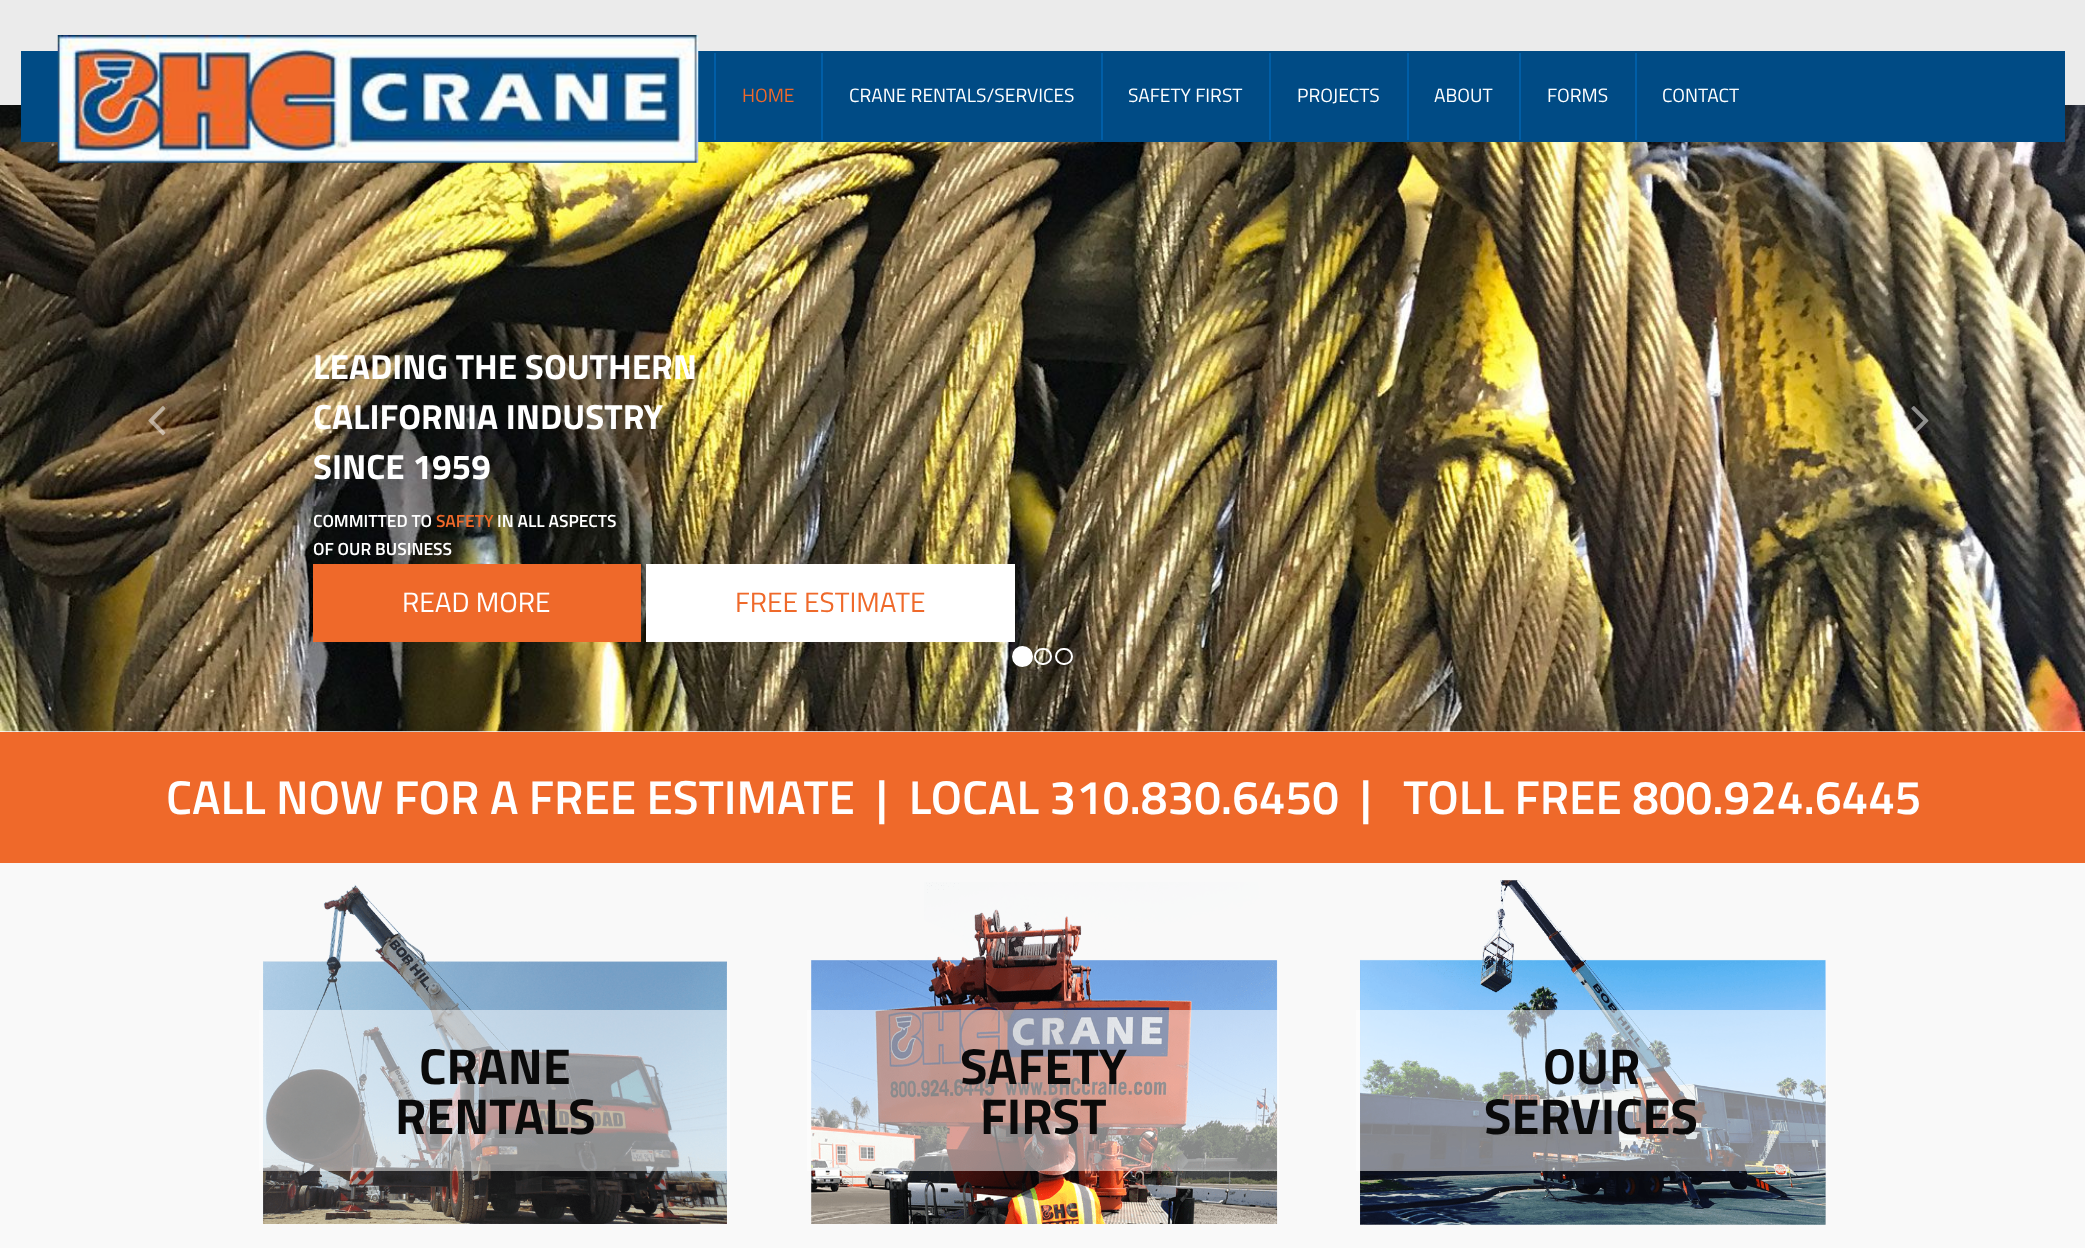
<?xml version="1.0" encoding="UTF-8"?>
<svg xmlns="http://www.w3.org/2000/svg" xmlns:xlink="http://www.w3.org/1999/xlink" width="2085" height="1248">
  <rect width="100%" height="100%" fill="#ffffff" />
  <rect width="2085" height="105" fill="#ebebeb" />
  <image x="0" y="105" width="2085" height="627" xlink:href="image3.png" />
  <rect x="21" y="51" width="2044" height="91" fill="#004b85" />
  <image x="57" y="35" width="642" height="128" xlink:href="image1.png" />
  <rect x="714" y="53" width="2" height="87" fill="#005ea7" />
  <rect x="821" y="53" width="2" height="87" fill="#005ea7" />
  <rect x="1101" y="53" width="2" height="87" fill="#005ea7" />
  <rect x="1269" y="53" width="2" height="87" fill="#005ea7" />
  <rect x="1407" y="53" width="2" height="87" fill="#005ea7" />
  <rect x="1519" y="53" width="2" height="87" fill="#005ea7" />
  <rect x="1635" y="53" width="2" height="87" fill="#005ea7" />
  <image x="148" y="406" width="18" height="30" xlink:href="image2.png" />
  <rect x="313" y="564" width="328" height="78" fill="#ef692a" />
  <rect x="646" y="564" width="369" height="78" fill="#ffffff" />
  <image x="1911" y="406" width="18" height="29" xlink:href="image4.png" />
  <circle cx="1022.5" cy="656.5" r="9.5" fill="#ffffff" stroke="#ffffff" stroke-width="2" />
  <rect x="1035" y="649" width="16" height="15" rx="7.5" fill="none" stroke="#ffffff" stroke-width="2" />
  <rect x="1056" y="649" width="16" height="15" rx="7.5" fill="none" stroke="#ffffff" stroke-width="2" />
  <rect y="732" width="2085" height="131" fill="#ef692a" />
  <rect y="863" width="2085" height="385" fill="#f9f9f9" />
  <image x="263" y="884" width="464" height="340" xlink:href="image5.png" />
  <rect x="259" y="1010" width="471" height="161" fill="#ffffff" fill-opacity="0.5" />
  <image x="811" y="882" width="467" height="342" xlink:href="image6.png" />
  <rect x="807" y="1010" width="472" height="161" fill="#ffffff" fill-opacity="0.5" />
  <image x="1360" y="880" width="466" height="345" xlink:href="image7.png" />
  <rect x="1356" y="1010" width="471" height="161" fill="#ffffff" fill-opacity="0.5" />
  <text x="742" y="102" style="font-family: Titillium Web; font-size: 19.25px; fill: #ef692a">HOME</text>
  <text x="849" y="102" style="font-family: Titillium Web; font-size: 19.25px; fill: #ffffff">CRANE RENTALS/SERVICES</text>
  <text x="1128" y="102" style="font-family: Titillium Web; font-size: 19.25px; fill: #ffffff">SAFETY FIRST</text>
  <text x="1297" y="102" style="font-family: Titillium Web; font-size: 19.25px; fill: #ffffff">PROJECTS</text>
  <text x="1434" y="102" style="font-family: Titillium Web; font-size: 19.25px; fill: #ffffff">ABOUT</text>
  <text x="1547" y="102" style="font-family: Titillium Web; font-size: 19.25px; fill: #ffffff">FORMS</text>
  <text x="1662" y="102" style="font-family: Titillium Web; font-size: 19.25px; fill: #ffffff">CONTACT</text>
  <text x="313" y="379" style="font-family: Titillium Web; font-size: 35px; font-weight: bold; fill: #ffffff">LEADING THE SOUTHERN</text>
  <text x="313" y="429" style="font-family: Titillium Web; font-size: 35px; font-weight: bold; fill: #ffffff">CALIFORNIA INDUSTRY</text>
  <text x="313" y="479" style="font-family: Titillium Web; font-size: 35px; font-weight: bold; fill: #ffffff">SINCE 1959</text>
  <text x="313" y="527" style="font-family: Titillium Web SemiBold; font-size: 17.5px; font-weight: 600; fill: #ffffff">COMMITTED TO</text>
  <text x="436" y="527" style="font-family: Titillium Web SemiBold; font-size: 17.5px; font-weight: 600; fill: #ef692a">SAFETY</text>
  <text x="497" y="527" style="font-family: Titillium Web SemiBold; font-size: 17.5px; font-weight: 600; fill: #ffffff">IN ALL ASPECTS</text>
  <text x="313" y="555" style="font-family: Titillium Web SemiBold; font-size: 17.5px; font-weight: 600; fill: #ffffff">OF OUR BUSINESS</text>
  <text x="402" y="612" style="font-family: Titillium Web; font-size: 28px; fill: #ffffff">READ MORE</text>
  <text x="735" y="612" style="font-family: Titillium Web; font-size: 28px; fill: #ef692a">FREE ESTIMATE</text>
  <text x="166" y="814" style="font-family: Titillium Web SemiBold; font-size: 47.6px; font-weight: 600; fill: #ffffff" xml:space="preserve">CALL NOW FOR A FREE ESTIMATE  |  LOCAL 310.830.6450  |   TOLL FREE 800.924.6445</text>
  <text x="419" y="1084" style="font-family: Titillium Web; font-size: 50.5px; font-weight: bold; fill: #0a0a0a">CRANE</text>
  <text x="395" y="1134" style="font-family: Titillium Web; font-size: 50.5px; font-weight: bold; fill: #0a0a0a">RENTALS</text>
  <text x="960" y="1084" style="font-family: Titillium Web; font-size: 50.5px; font-weight: bold; fill: #0a0a0a">SAFETY</text>
  <text x="980" y="1134" style="font-family: Titillium Web; font-size: 50.5px; font-weight: bold; fill: #0a0a0a">FIRST</text>
  <text x="1543" y="1084" style="font-family: Titillium Web; font-size: 50.5px; font-weight: bold; fill: #0a0a0a">OUR</text>
  <text x="1484" y="1134" style="font-family: Titillium Web; font-size: 50.5px; font-weight: bold; fill: #0a0a0a">SERVICES</text>
</svg>
